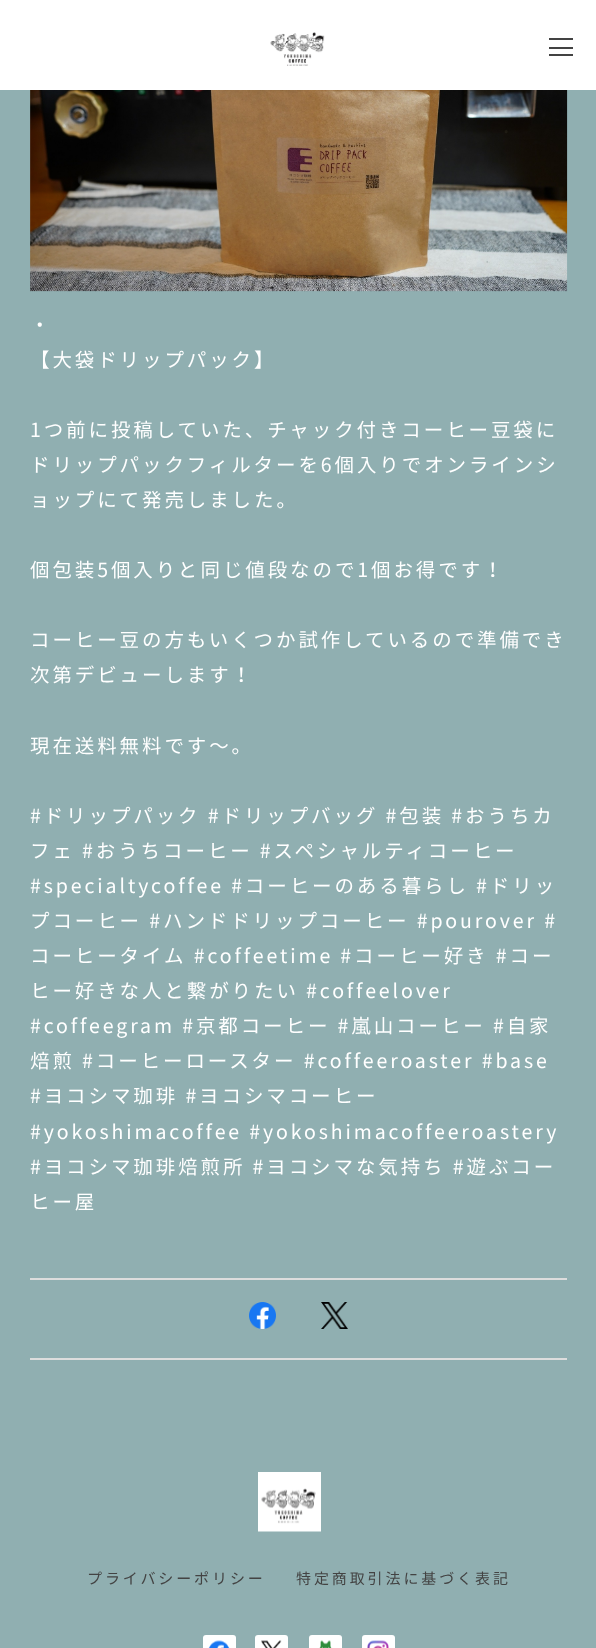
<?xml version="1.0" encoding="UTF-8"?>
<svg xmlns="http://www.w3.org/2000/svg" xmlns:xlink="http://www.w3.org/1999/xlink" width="596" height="1648">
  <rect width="100%" height="100%" fill="#90afb1" />
  <rect width="596" height="90" fill="#ffffff" />
  <image x="270" y="32" width="55" height="34" xlink:href="image1.png" />
  <rect x="549" y="38" width="24" height="2" fill="#434343" />
  <rect x="549" y="47" width="24" height="2" fill="#434343" />
  <rect x="549" y="54" width="24" height="2" fill="#434343" />
  <rect x="30" y="1358" width="537" height="2" fill="#dddddd" />
  <image x="30" y="90" width="538" height="202" xlink:href="image2.png" />
  <rect x="30" y="1278" width="537" height="2" fill="#dddddd" />
  <image x="249" y="1302" width="27" height="27" xlink:href="image3.png" />
  <image x="321" y="1302" width="27" height="27" xlink:href="image4.png" />
  <image x="258" y="1472" width="63" height="60" xlink:href="image5.png" />
  <rect x="203" y="1635" width="33" height="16" rx="3" fill="#ffffff" />
  <image x="208" y="1640" width="22" height="8" xlink:href="image6.png" />
  <rect x="255" y="1635" width="33" height="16" rx="3" fill="#ffffff" />
  <image x="261" y="1640" width="21" height="8" xlink:href="image7.png" />
  <rect x="309" y="1635" width="33" height="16" rx="3" fill="#ffffff" />
  <image x="319" y="1640" width="13" height="8" xlink:href="image8.png" />
  <rect x="362" y="1635" width="33" height="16" rx="3" fill="#ffffff" />
  <image x="367" y="1640" width="22" height="8" xlink:href="image9.png" />
  <text x="30" y="332" style="font-family: Noto Sans JP; font-size: 19.5px; letter-spacing: 2.9px; fill: #ffffff">・</text>
  <text x="30" y="367" style="font-family: Noto Sans JP; font-size: 19.5px; letter-spacing: 2.9px; fill: #ffffff">【大袋ドリップパック】</text>
  <text x="30" y="437" style="font-family: Noto Sans JP; font-size: 19.5px; letter-spacing: 2.9px; fill: #ffffff">1つ前に投稿していた、チャック付きコーヒー豆袋に</text>
  <text x="30" y="472" style="font-family: Noto Sans JP; font-size: 19.5px; letter-spacing: 2.9px; fill: #ffffff">ドリップパックフィルターを6個入りでオンラインシ</text>
  <text x="30" y="507" style="font-family: Noto Sans JP; font-size: 19.5px; letter-spacing: 2.9px; fill: #ffffff">ョップにて発売しました。</text>
  <text x="30" y="577" style="font-family: Noto Sans JP; font-size: 19.5px; letter-spacing: 2.9px; fill: #ffffff">個包装5個入りと同じ値段なので1個お得です！</text>
  <text x="30" y="647" style="font-family: Noto Sans JP; font-size: 19.5px; letter-spacing: 2.9px; fill: #ffffff">コーヒー豆の方もいくつか試作しているので準備でき</text>
  <text x="30" y="682" style="font-family: Noto Sans JP; font-size: 19.5px; letter-spacing: 2.9px; fill: #ffffff">次第デビューします！</text>
  <text x="30" y="753" style="font-family: Noto Sans JP; font-size: 19.5px; letter-spacing: 2.9px; fill: #ffffff">現在送料無料です〜。</text>
  <text x="30" y="823" style="font-family: Noto Sans JP; font-size: 19.5px; letter-spacing: 2.9px; fill: #ffffff">#ドリップパック #ドリップバッグ #包装 #おうちカ</text>
  <text x="30" y="858" style="font-family: Noto Sans JP; font-size: 19.5px; letter-spacing: 2.9px; fill: #ffffff">フェ #おうちコーヒー #スペシャルティコーヒー</text>
  <text x="30" y="893" style="font-family: Noto Sans JP; font-size: 19.5px; letter-spacing: 2.9px; fill: #ffffff">#specialtycoffee #コーヒーのある暮らし #ドリッ</text>
  <text x="30" y="928" style="font-family: Noto Sans JP; font-size: 19.5px; letter-spacing: 2.9px; fill: #ffffff">プコーヒー #ハンドドリップコーヒー #pourover #</text>
  <text x="30" y="963" style="font-family: Noto Sans JP; font-size: 19.5px; letter-spacing: 2.9px; fill: #ffffff">コーヒータイム #coffeetime #コーヒー好き #コー</text>
  <text x="30" y="998" style="font-family: Noto Sans JP; font-size: 19.5px; letter-spacing: 2.9px; fill: #ffffff">ヒー好きな人と繋がりたい #coffeelover</text>
  <text x="30" y="1033" style="font-family: Noto Sans JP; font-size: 19.5px; letter-spacing: 2.9px; fill: #ffffff">#coffeegram #京都コーヒー #嵐山コーヒー #自家</text>
  <text x="30" y="1068" style="font-family: Noto Sans JP; font-size: 19.5px; letter-spacing: 2.9px; fill: #ffffff">焙煎 #コーヒーロースター #coffeeroaster #base</text>
  <text x="30" y="1103" style="font-family: Noto Sans JP; font-size: 19.5px; letter-spacing: 2.9px; fill: #ffffff">#ヨコシマ珈琲 #ヨコシマコーヒー</text>
  <text x="30" y="1139" style="font-family: Noto Sans JP; font-size: 19.5px; letter-spacing: 2.9px; fill: #ffffff">#yokoshimacoffee #yokoshimacoffeeroastery</text>
  <text x="30" y="1174" style="font-family: Noto Sans JP; font-size: 19.5px; letter-spacing: 2.9px; fill: #ffffff">#ヨコシマ珈琲焙煎所 #ヨコシマな気持ち #遊ぶコー</text>
  <text x="30" y="1209" style="font-family: Noto Sans JP; font-size: 19.5px; letter-spacing: 2.9px; fill: #ffffff">ヒー屋</text>
  <text x="87" y="1584" style="font-family: Noto Sans JP; font-size: 15px; letter-spacing: 2.9px; fill: #434343">プライバシーポリシー</text>
  <text x="296" y="1584" style="font-family: Noto Sans JP; font-size: 15px; letter-spacing: 2.9px; fill: #434343">特定商取引法に基づく表記</text>
</svg>
